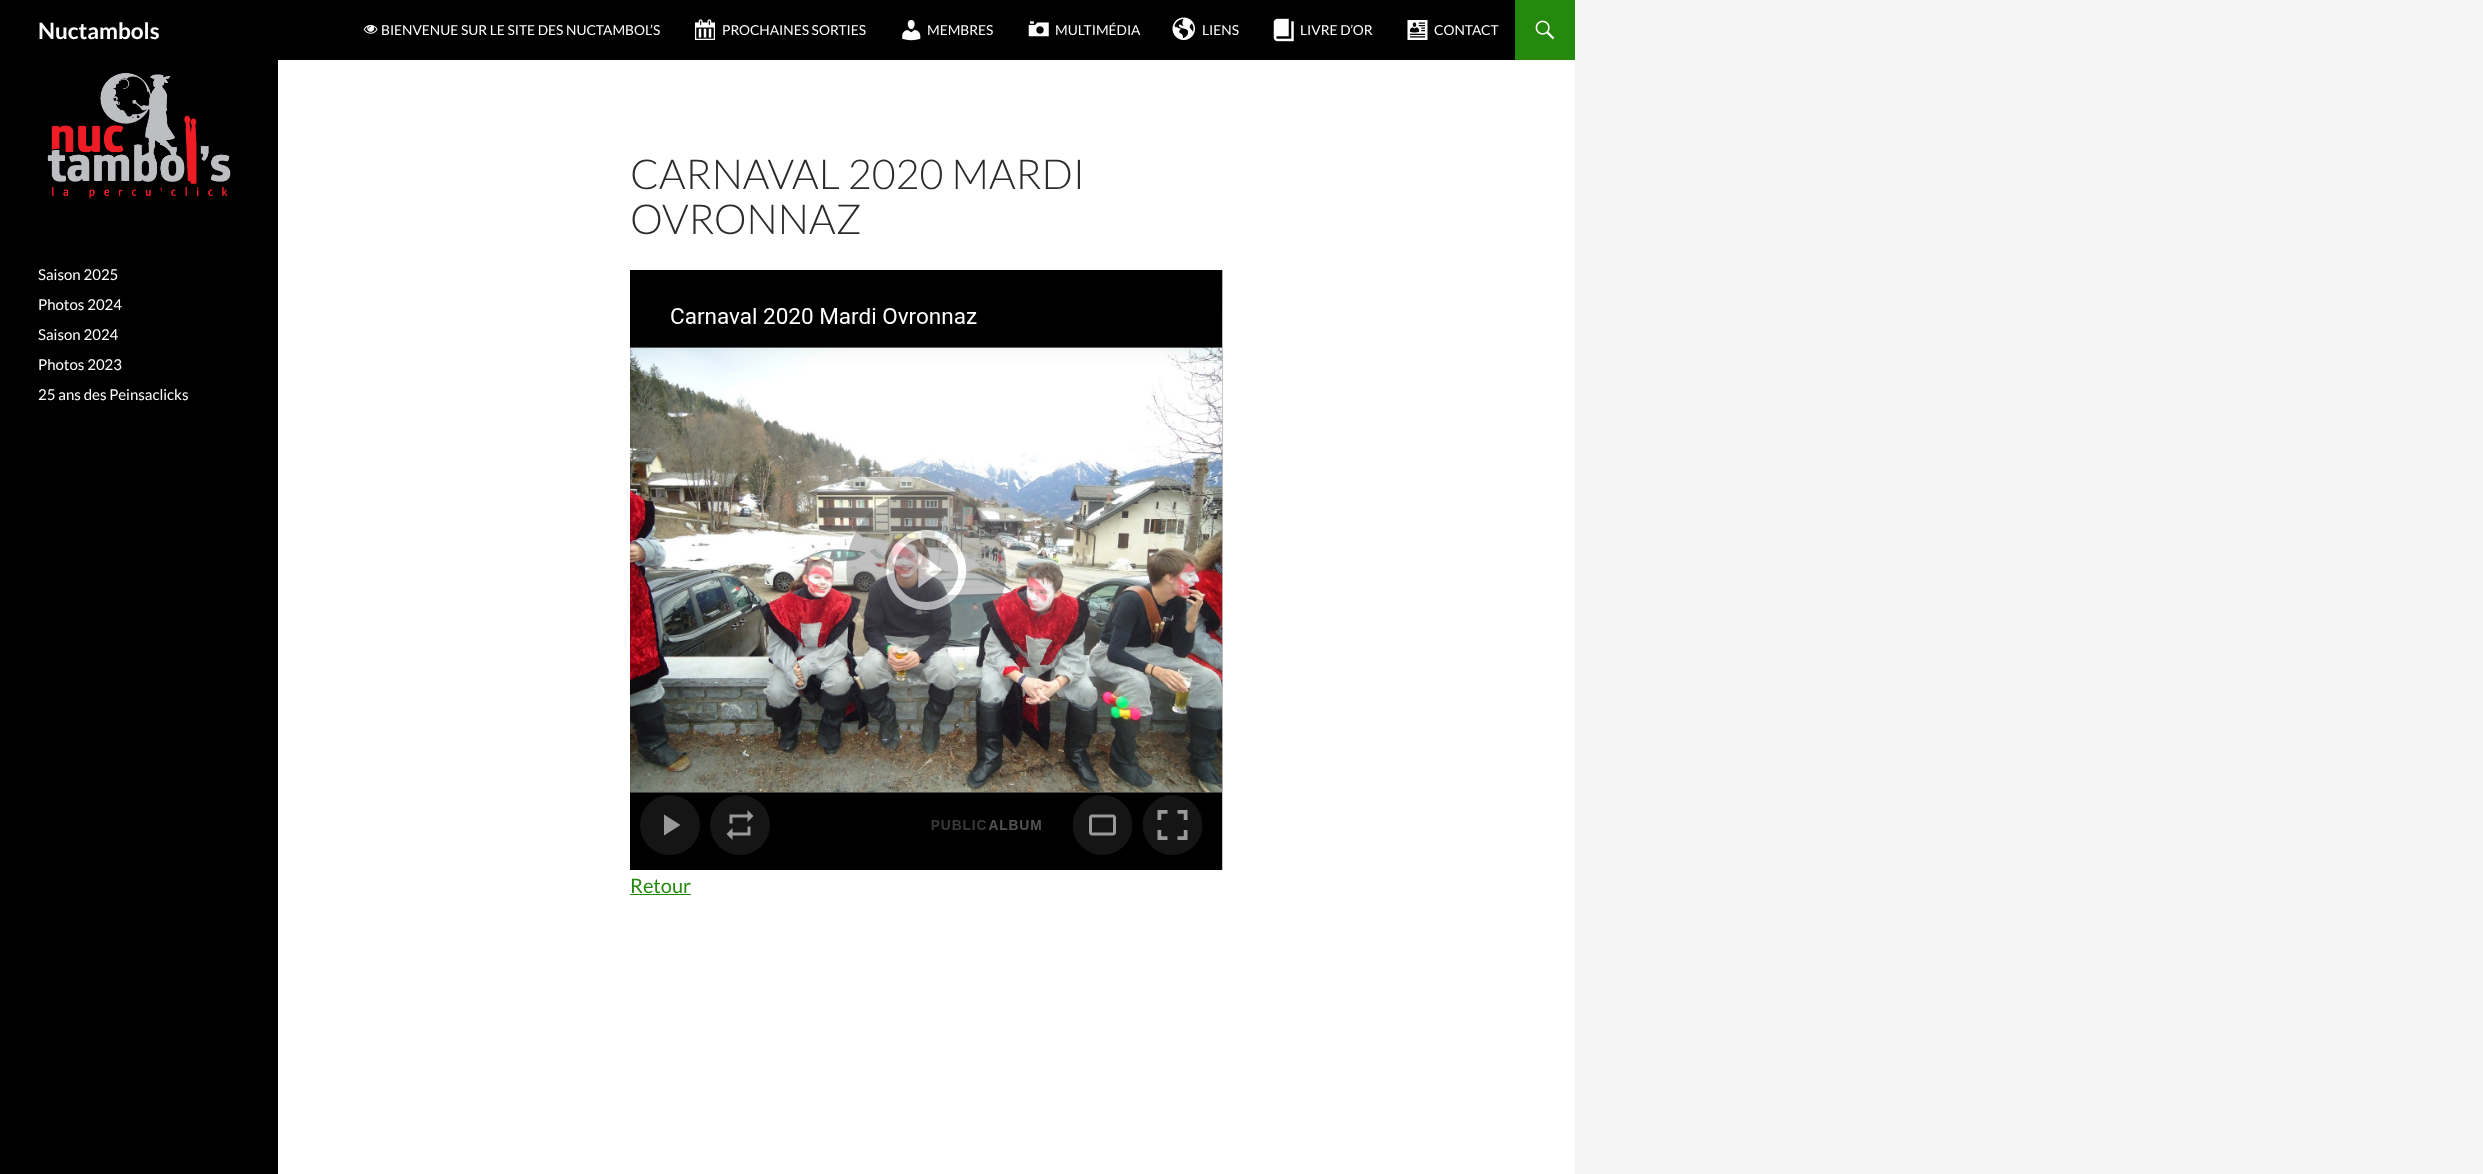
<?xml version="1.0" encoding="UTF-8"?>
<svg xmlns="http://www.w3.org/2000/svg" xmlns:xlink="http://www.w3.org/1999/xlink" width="2483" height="1174">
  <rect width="100%" height="100%" fill="#f5f5f5" />
  <rect x="278" y="60" width="1297" height="1114" fill="#ffffff" />
  <rect width="1515" height="60" fill="#000000" />
  <image x="363" y="24" width="15" height="10" xlink:href="image1.png" />
  <image x="695" y="19" width="20" height="21" xlink:href="image2.png" />
  <image x="902" y="20" width="19" height="21" xlink:href="image3.png" />
  <image x="1028" y="21" width="21" height="16" xlink:href="image4.png" />
  <image x="1172" y="17" width="23" height="23" xlink:href="image5.png" />
  <image x="1273" y="18" width="21" height="24" xlink:href="image6.png" />
  <image x="1407" y="20" width="21" height="20" xlink:href="image7.png" />
  <rect x="1515" width="60" height="60" fill="#24890d" />
  <image x="1535" y="20" width="20" height="20" xlink:href="image8.png" />
  <rect y="60" width="278" height="1114" fill="#000000" />
  <image x="47" y="73" width="184" height="126" xlink:href="image9.png" />
  <image x="630" y="270" width="593" height="600" xlink:href="image10.png" />
  <rect x="630" y="894" width="61" height="1" fill="#24890d" />
  <text x="38" y="39" style="font-family: Lato; font-size: 22.5px; font-weight: bold; fill: #ffffff">Nuctambols</text>
  <text x="381" y="35" style="font-family: Lato; font-size: 13.75px; fill: #ffffff">BIENVENUE SUR LE SITE DES NUCTAMBOL’S</text>
  <text x="722" y="35" style="font-family: Lato; font-size: 13.75px; fill: #ffffff">PROCHAINES SORTIES</text>
  <text x="927" y="35" style="font-family: Lato; font-size: 13.75px; fill: #ffffff">MEMBRES</text>
  <text x="1055" y="35" style="font-family: Lato; font-size: 13.75px; fill: #ffffff">MULTIMÉDIA</text>
  <text x="1202" y="35" style="font-family: Lato; font-size: 13.75px; fill: #ffffff">LIENS</text>
  <text x="1300" y="35" style="font-family: Lato; font-size: 13.75px; fill: #ffffff">LIVRE D’OR</text>
  <text x="1434" y="35" style="font-family: Lato; font-size: 13.75px; fill: #ffffff">CONTACT</text>
  <text x="38" y="280" style="font-family: Lato; font-size: 15px; fill: #ffffff">Saison 2025</text>
  <text x="38" y="310" style="font-family: Lato; font-size: 15px; fill: #ffffff">Photos 2024</text>
  <text x="38" y="340" style="font-family: Lato; font-size: 15px; fill: #ffffff">Saison 2024</text>
  <text x="38" y="370" style="font-family: Lato; font-size: 15px; fill: #ffffff">Photos 2023</text>
  <text x="38" y="400" style="font-family: Lato; font-size: 15px; fill: #ffffff">25 ans des Peinsaclicks</text>
  <text x="630" y="189" style="font-family: Lato; font-size: 41.25px; font-weight: 300; fill: #2b2b2b">CARNAVAL 2020 MARDI</text>
  <text x="630" y="234" style="font-family: Lato; font-size: 41.25px; font-weight: 300; fill: #2b2b2b">OVRONNAZ</text>
  <text x="630" y="893" style="font-family: Lato; font-size: 20px; fill: #24890d">Retour</text>
</svg>
